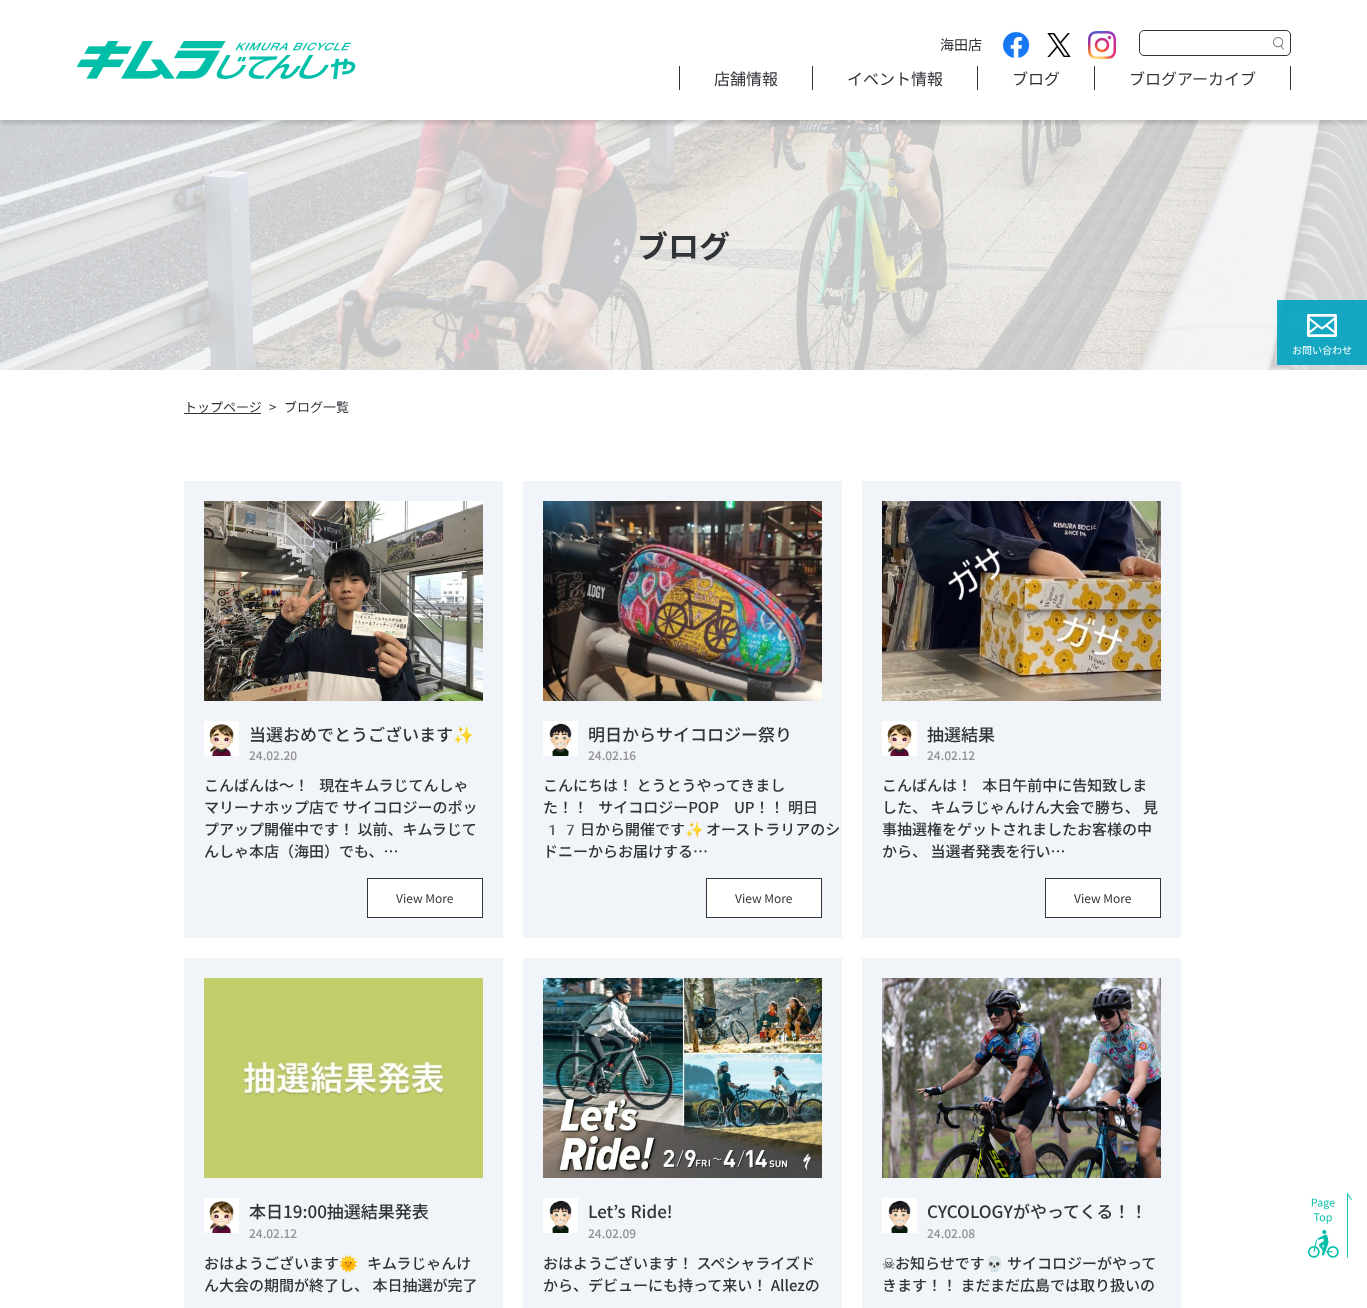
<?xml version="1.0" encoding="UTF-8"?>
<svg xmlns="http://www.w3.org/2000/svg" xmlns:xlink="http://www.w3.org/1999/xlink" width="1367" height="1308">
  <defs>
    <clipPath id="clip1"><rect x="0" y="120" width="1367" height="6" /></clipPath>
  </defs>
  <rect width="100%" height="100%" fill="#ffffff" />
  <image x="0" y="120" width="1367" height="250" xlink:href="image6.png" />
  <g clip-path="url(#clip1)">
    <rect y="3" width="1367" height="120" fill="#000000" fill-opacity="0.16" filter="blur(2.5px)" />
  </g>
  <image x="76" y="41" width="280" height="38" xlink:href="image1.png" />
  <image x="1002" y="31" width="28" height="28" xlink:href="image2.png" />
  <image x="1047" y="33" width="24" height="24" xlink:href="image3.png" />
  <image x="1088" y="31" width="28" height="28" xlink:href="image4.png" />
  <rect x="1139.5" y="30.5" width="151" height="25" rx="4.5" fill="none" stroke="#303338" />
  <image x="1273" y="37" width="11" height="13" xlink:href="image5.png" />
  <rect x="812" y="66" width="1" height="24" fill="#303338" />
  <rect x="679" y="66" width="1" height="24" fill="#303338" />
  <rect x="977" y="66" width="1" height="24" fill="#303338" />
  <rect x="1094" y="66" width="1" height="24" fill="#303338" />
  <rect x="1290" y="66" width="1" height="24" fill="#303338" />
  <rect x="184" y="413" width="77" height="1" fill="#303338" />
  <rect x="184" y="481" width="319" height="457" fill="#f1f4f9" />
  <image x="204" y="501" width="279" height="200" xlink:href="image7.png" />
  <image x="204" y="721" width="35" height="35" xlink:href="image8.png" />
  <rect x="367.5" y="878.5" width="115" height="39" fill="#ffffff" stroke="#303338" />
  <rect x="523" y="481" width="319" height="457" fill="#f1f4f9" />
  <image x="543" y="501" width="279" height="200" xlink:href="image9.png" />
  <image x="543" y="721" width="35" height="35" xlink:href="image10.png" />
  <rect x="706.5" y="878.5" width="115" height="39" fill="#ffffff" stroke="#303338" />
  <rect x="862" y="481" width="319" height="457" fill="#f1f4f9" />
  <image x="882" y="501" width="279" height="200" xlink:href="image11.png" />
  <image x="882" y="721" width="35" height="35" xlink:href="image8.png" />
  <rect x="1045.5" y="878.5" width="115" height="39" fill="#ffffff" stroke="#303338" />
  <rect x="184" y="958" width="319" height="350" fill="#f1f4f9" />
  <image x="204" y="978" width="279" height="200" xlink:href="image12.png" />
  <image x="204" y="1198" width="35" height="35" xlink:href="image13.png" />
  <rect x="523" y="958" width="319" height="350" fill="#f1f4f9" />
  <image x="543" y="978" width="279" height="200" xlink:href="image14.png" />
  <image x="543" y="1198" width="35" height="35" xlink:href="image15.png" />
  <rect x="862" y="958" width="319" height="350" fill="#f1f4f9" />
  <image x="882" y="978" width="279" height="200" xlink:href="image16.png" />
  <image x="882" y="1198" width="35" height="35" xlink:href="image15.png" />
  <rect x="1277" y="300" width="90" height="65" fill="#00a2bf" fill-opacity="0.9" />
  <image x="1307" y="314" width="30" height="23" xlink:href="image17.png" />
  <image x="1308" y="1192" width="44" height="66" xlink:href="image18.png" />
  <text x="940" y="50" style="font-family: Noto Sans JP; font-size: 14px; fill: #303338">海田店</text>
  <text x="714" y="85" style="font-family: Noto Sans JP; font-size: 16px; fill: #303338">店舗情報</text>
  <text x="847" y="85" style="font-family: Noto Sans JP; font-size: 16px; fill: #303338">イベント情報</text>
  <text x="1012" y="85" style="font-family: Noto Sans JP; font-size: 16px; fill: #303338">ブログ</text>
  <text x="1129" y="85" style="font-family: Noto Sans JP; font-size: 16px; fill: #303338">ブログアーカイブ</text>
  <text x="637" y="258" style="font-family: Noto Sans JP; font-size: 31px; font-weight: bold; fill: #303338">ブログ</text>
  <text x="184" y="412" style="font-family: Noto Sans JP; font-size: 13px; fill: #303338">トップページ</text>
  <text x="269" y="412" style="font-family: Noto Sans JP; font-size: 13px; fill: #303338">&gt;</text>
  <text x="284" y="412" style="font-family: Noto Sans JP; font-size: 13px; fill: #303338">ブログ一覧</text>
  <text x="249" y="741" style="font-family: Noto Sans JP; font-size: 17px; font-weight: 500; fill: #303338">当選おめでとうございます</text>
  <text x="453" y="741" style="font-family: Noto Color Emoji; font-size: 17px; fill: #303338">✨</text>
  <text x="249" y="760" style="font-family: Noto Sans JP; font-size: 12px; font-weight: 500; fill: #919191">24.02.20</text>
  <text x="204" y="791" style="font-family: Noto Sans JP; font-size: 15px; font-weight: 500; fill: #303338" xml:space="preserve">こんばんは～！   現在キムラじてんしゃ</text>
  <text x="204" y="813" style="font-family: Noto Sans JP; font-size: 15px; font-weight: 500; fill: #303338">マリーナホップ店で サイコロジーのポッ</text>
  <text x="204" y="835" style="font-family: Noto Sans JP; font-size: 15px; font-weight: 500; fill: #303338">プアップ開催中です！ 以前、キムラじて</text>
  <text x="204" y="857" style="font-family: Noto Sans JP; font-size: 15px; font-weight: 500; fill: #303338">んしゃ本店（海田）でも、…</text>
  <text x="396" y="903" style="font-family: Noto Sans JP; font-size: 12px; fill: #303338">View More</text>
  <text x="588" y="741" style="font-family: Noto Sans JP; font-size: 17px; font-weight: 500; fill: #303338">明日からサイコロジー祭り</text>
  <text x="588" y="760" style="font-family: Noto Sans JP; font-size: 12px; font-weight: 500; fill: #919191">24.02.16</text>
  <text x="543" y="791" style="font-family: Noto Sans JP; font-size: 15px; font-weight: 500; fill: #303338">こんにちは！ とうとうやってきまし</text>
  <text x="543" y="813" style="font-family: Noto Sans JP; font-size: 15px; font-weight: 500; fill: #303338" xml:space="preserve">た！！   サイコロジーPOP　UP！！ 明日</text>
  <text x="543" y="835" style="font-family: Noto Color Emoji; font-size: 15px; fill: #303338">17</text>
  <text x="580" y="835" style="font-family: Noto Sans JP; font-size: 15px; font-weight: 500; fill: #303338">日から開催です</text>
  <text x="685" y="835" style="font-family: Noto Color Emoji; font-size: 15px; fill: #303338">✨</text>
  <text x="706" y="835" style="font-family: Noto Sans JP; font-size: 15px; font-weight: 500; fill: #303338">オーストラリアのシ</text>
  <text x="543" y="857" style="font-family: Noto Sans JP; font-size: 15px; font-weight: 500; fill: #303338">ドニーからお届けする…</text>
  <text x="735" y="903" style="font-family: Noto Sans JP; font-size: 12px; fill: #303338">View More</text>
  <text x="927" y="741" style="font-family: Noto Sans JP; font-size: 17px; font-weight: 500; fill: #303338">抽選結果</text>
  <text x="927" y="760" style="font-family: Noto Sans JP; font-size: 12px; font-weight: 500; fill: #919191">24.02.12</text>
  <text x="882" y="791" style="font-family: Noto Sans JP; font-size: 15px; font-weight: 500; fill: #303338" xml:space="preserve">こんばんは！   本日午前中に告知致しま</text>
  <text x="882" y="813" style="font-family: Noto Sans JP; font-size: 15px; font-weight: 500; fill: #303338">した、 キムラじゃんけん大会で勝ち、 見</text>
  <text x="882" y="835" style="font-family: Noto Sans JP; font-size: 15px; font-weight: 500; fill: #303338">事抽選権をゲットされましたお客様の中</text>
  <text x="882" y="857" style="font-family: Noto Sans JP; font-size: 15px; font-weight: 500; fill: #303338">から、 当選者発表を行い…</text>
  <text x="1074" y="903" style="font-family: Noto Sans JP; font-size: 12px; fill: #303338">View More</text>
  <text x="249" y="1218" style="font-family: Noto Sans JP; font-size: 17px; font-weight: 500; fill: #303338">本日19:00抽選結果発表</text>
  <text x="249" y="1238" style="font-family: Noto Sans JP; font-size: 12px; font-weight: 500; fill: #919191">24.02.12</text>
  <text x="204" y="1269" style="font-family: Noto Sans JP; font-size: 15px; font-weight: 500; fill: #303338">おはようございます</text>
  <text x="339" y="1269" style="font-family: Noto Color Emoji; font-size: 15px; fill: #303338">🌞</text>
  <text x="367" y="1269" style="font-family: Noto Sans JP; font-size: 15px; font-weight: 500; fill: #303338">キムラじゃんけ</text>
  <text x="204" y="1291" style="font-family: Noto Sans JP; font-size: 15px; font-weight: 500; fill: #303338">ん大会の期間が終了し、 本日抽選が完了</text>
  <text x="588" y="1218" word-spacing="1" style="font-family: Noto Sans JP; font-size: 17px; font-weight: 500; fill: #303338">Let’s Ride!</text>
  <text x="588" y="1238" style="font-family: Noto Sans JP; font-size: 12px; font-weight: 500; fill: #919191">24.02.09</text>
  <text x="543" y="1269" style="font-family: Noto Sans JP; font-size: 15px; font-weight: 500; fill: #303338">おはようございます！ スペシャライズド</text>
  <text x="543" y="1291" style="font-family: Noto Sans JP; font-size: 15px; font-weight: 500; fill: #303338">から、デビューにも持って来い！ Allezの</text>
  <text x="927" y="1218" style="font-family: Noto Sans JP; font-size: 17px; font-weight: 500; fill: #303338">CYCOLOGYがやってくる！！</text>
  <text x="927" y="1238" style="font-family: Noto Sans JP; font-size: 12px; font-weight: 500; fill: #919191">24.02.08</text>
  <text x="882" y="1269" style="font-family: DejaVu Sans; font-size: 15px; fill: #303338">☠</text>
  <text x="895" y="1269" style="font-family: Noto Sans JP; font-size: 15px; font-weight: 500; fill: #303338">お知らせです</text>
  <text x="985" y="1269" style="font-family: Noto Color Emoji; font-size: 15px; fill: #303338">💀</text>
  <text x="1007" y="1269" style="font-family: Noto Sans JP; font-size: 15px; font-weight: 500; fill: #303338">サイコロジーがやって</text>
  <text x="882" y="1291" style="font-family: Noto Sans JP; font-size: 15px; font-weight: 500; fill: #303338">きます！！ まだまだ広島では取り扱いの</text>
  <text x="1292" y="354" style="font-family: Noto Sans JP; font-size: 10px; fill: #ffffff">お問い合わせ</text>
</svg>
